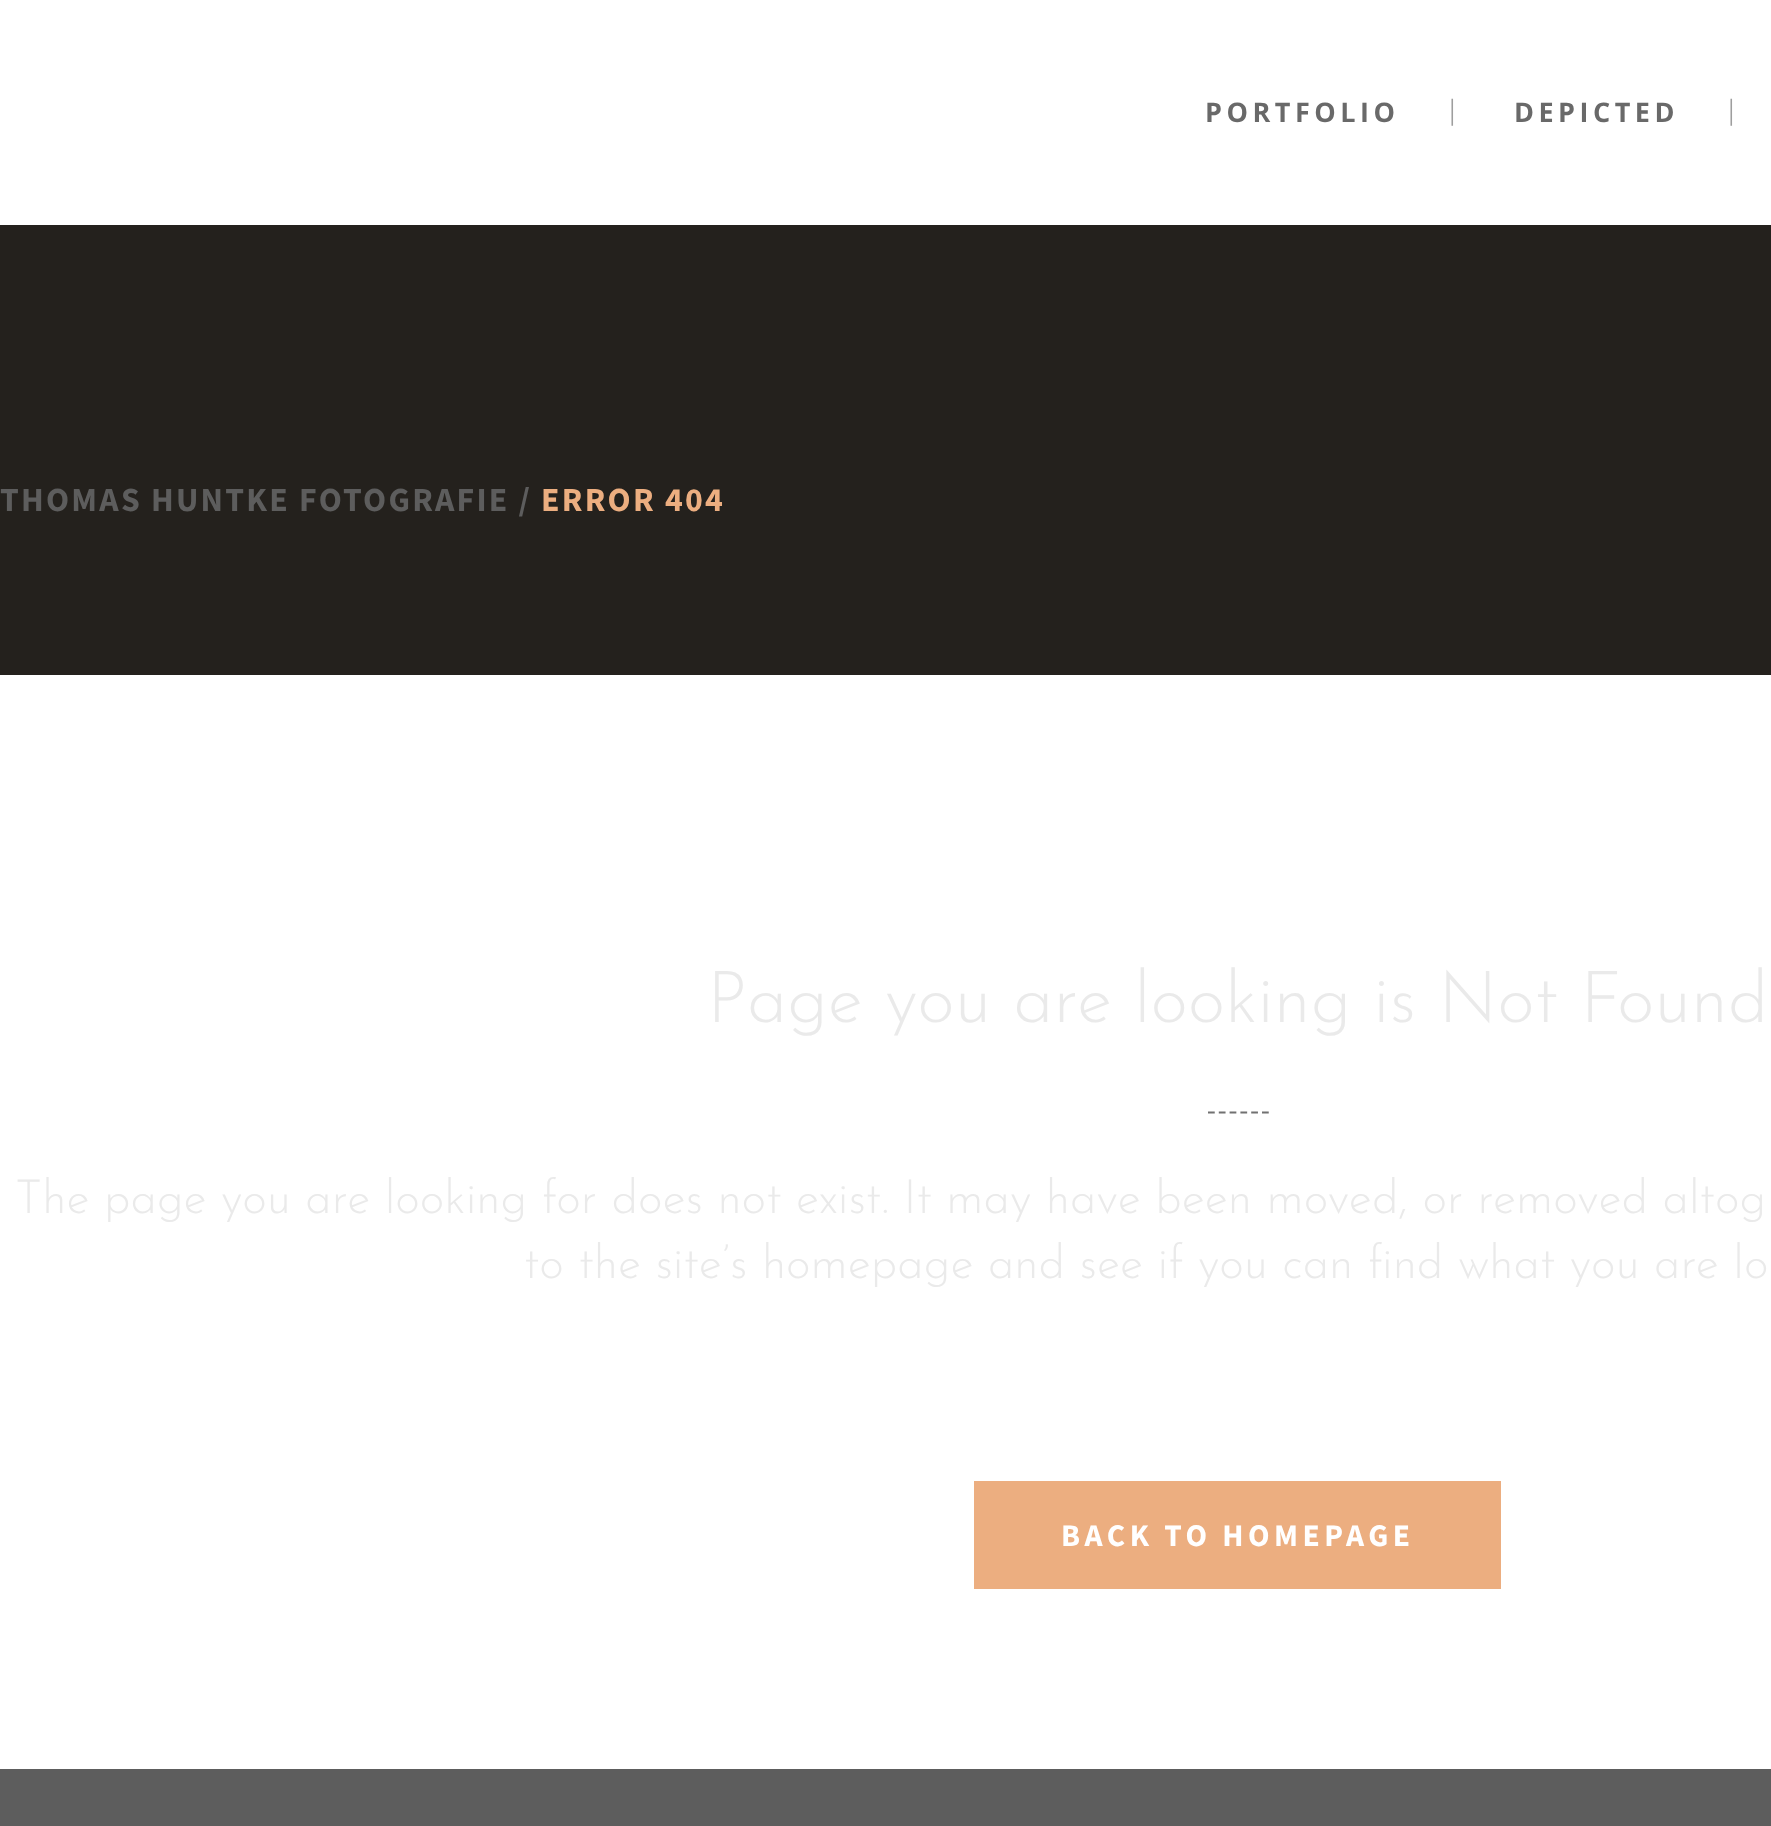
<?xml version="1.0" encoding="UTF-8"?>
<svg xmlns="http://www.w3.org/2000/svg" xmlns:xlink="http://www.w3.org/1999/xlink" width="1771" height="1826">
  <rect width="100%" height="100%" fill="#ffffff" />
  <rect y="225" width="1771" height="450" fill="#24211d" />
  <path d="M 1208 1112.5 h 61" fill="none" stroke="#717171" stroke-width="2.2" stroke-dasharray="6.75 4.05" />
  <rect x="974" y="1481" width="527" height="108" fill="#ecae80" />
  <rect y="1769" width="1771" height="57" fill="#5d5d5d" />
  <text x="1205" y="122" style="font-family: Open Sans; font-size: 27px; font-weight: bold; letter-spacing: 4.5px; fill: #696969">PORTFOLIO</text>
  <text x="1449" y="119" style="font-family: Source Sans Pro; font-size: 27px; fill: #9e9e9e">|</text>
  <text x="1514" y="122" style="font-family: Open Sans; font-size: 27px; font-weight: bold; letter-spacing: 4.5px; fill: #696969">DEPICTED</text>
  <text x="1728" y="119" style="font-family: Source Sans Pro; font-size: 27px; fill: #9e9e9e">|</text>
  <text x="0" y="511" style="font-family: Source Sans Pro; font-size: 33.75px; font-weight: bold; letter-spacing: 2.25px; fill: #5d5d5d">THOMAS HUNTKE FOTOGRAFIE /</text>
  <text x="541" y="511" style="font-family: Source Sans Pro; font-size: 33.75px; font-weight: bold; letter-spacing: 2.25px; fill: #ecae80">ERROR 404</text>
  <text x="707" y="1022" style="font-family: Josefin Sans; font-size: 72px; font-weight: 100; fill: #eaeaea">Page you are looking is Not Found</text>
  <text x="15" y="1213" style="font-family: Josefin Sans; font-size: 47.25px; font-weight: 100; fill: #eaeaea">The page you are looking for does not exist. It may have been moved, or removed altog</text>
  <text x="524" y="1278" style="font-family: Josefin Sans; font-size: 47.25px; font-weight: 100; fill: #eaeaea">to the site’s homepage and see if you can find what you are lo</text>
  <text x="1061" y="1546" style="font-family: Source Sans Pro; font-size: 31.5px; font-weight: bold; letter-spacing: 4.5px; fill: #ffffff">BACK TO HOMEPAGE</text>
</svg>
